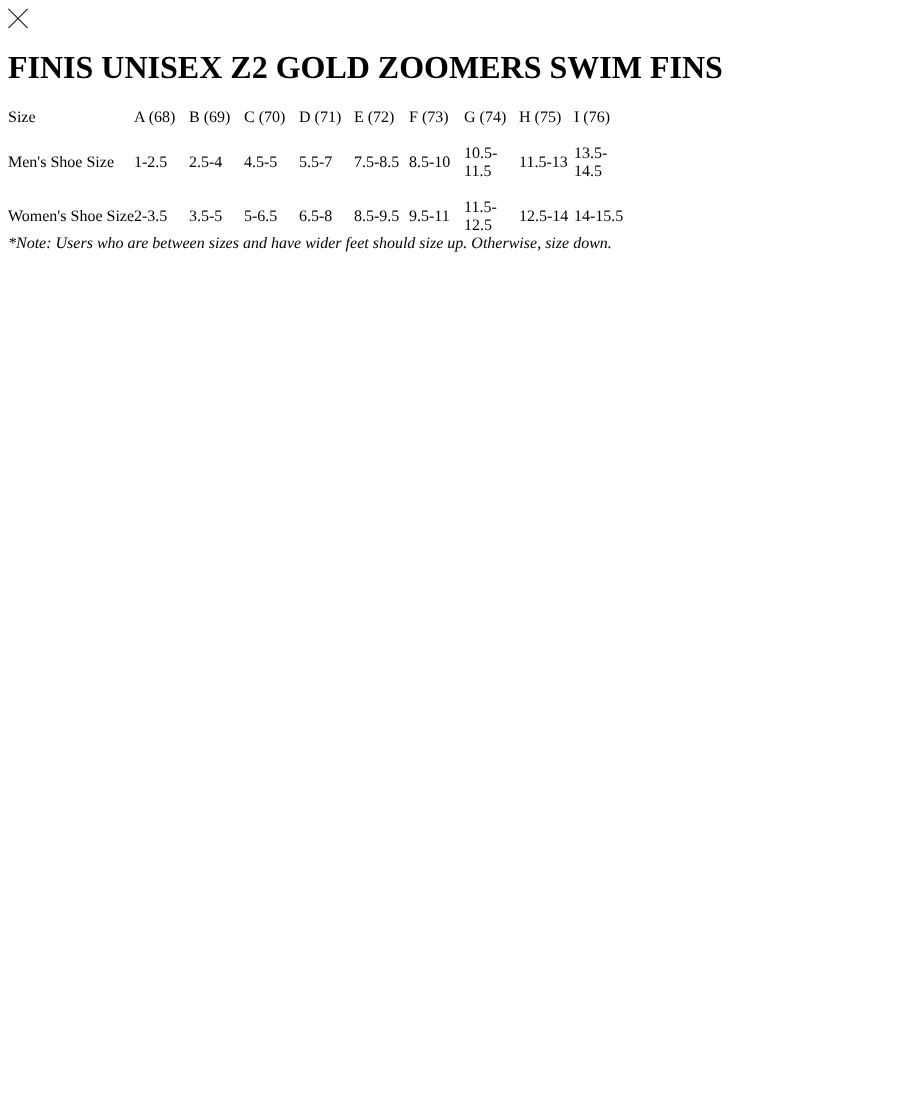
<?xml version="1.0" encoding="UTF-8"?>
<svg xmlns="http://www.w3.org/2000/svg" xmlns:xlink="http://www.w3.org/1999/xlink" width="909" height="1094">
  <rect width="100%" height="100%" fill="#ffffff" />
  <image x="8" y="8" width="20" height="20" xlink:href="image1.png" />
  <text x="8" y="78" style="font-family: Liberation Serif; font-size: 32px; font-weight: bold; fill: #000000">FINIS UNISEX Z2 GOLD ZOOMERS SWIM FINS</text>
  <text x="8" y="122" style="font-family: Liberation Serif; font-size: 16px; fill: #000000">Size</text>
  <text x="134" y="122" style="font-family: Liberation Serif; font-size: 16px; fill: #000000">A (68)</text>
  <text x="189" y="122" style="font-family: Liberation Serif; font-size: 16px; fill: #000000">B (69)</text>
  <text x="244" y="122" style="font-family: Liberation Serif; font-size: 16px; fill: #000000">C (70)</text>
  <text x="299" y="122" style="font-family: Liberation Serif; font-size: 16px; fill: #000000">D (71)</text>
  <text x="354" y="122" style="font-family: Liberation Serif; font-size: 16px; fill: #000000">E (72)</text>
  <text x="409" y="122" style="font-family: Liberation Serif; font-size: 16px; fill: #000000">F (73)</text>
  <text x="464" y="122" style="font-family: Liberation Serif; font-size: 16px; fill: #000000">G (74)</text>
  <text x="519" y="122" style="font-family: Liberation Serif; font-size: 16px; fill: #000000">H (75)</text>
  <text x="574" y="122" style="font-family: Liberation Serif; font-size: 16px; fill: #000000">I (76)</text>
  <text x="8" y="167" style="font-family: Liberation Serif; font-size: 16px; fill: #000000">Men's Shoe Size</text>
  <text x="134" y="167" style="font-family: Liberation Serif; font-size: 16px; fill: #000000">1-2.5</text>
  <text x="189" y="167" style="font-family: Liberation Serif; font-size: 16px; fill: #000000">2.5-4</text>
  <text x="244" y="167" style="font-family: Liberation Serif; font-size: 16px; fill: #000000">4.5-5</text>
  <text x="299" y="167" style="font-family: Liberation Serif; font-size: 16px; fill: #000000">5.5-7</text>
  <text x="354" y="167" style="font-family: Liberation Serif; font-size: 16px; fill: #000000">7.5-8.5</text>
  <text x="409" y="167" style="font-family: Liberation Serif; font-size: 16px; fill: #000000">8.5-10</text>
  <text x="464" y="158" style="font-family: Liberation Serif; font-size: 16px; fill: #000000">10.5-</text>
  <text x="464" y="176" style="font-family: Liberation Serif; font-size: 16px; fill: #000000">11.5</text>
  <text x="519" y="167" style="font-family: Liberation Serif; font-size: 16px; fill: #000000">11.5-13</text>
  <text x="574" y="158" style="font-family: Liberation Serif; font-size: 16px; fill: #000000">13.5-</text>
  <text x="574" y="176" style="font-family: Liberation Serif; font-size: 16px; fill: #000000">14.5</text>
  <text x="8" y="221" style="font-family: Liberation Serif; font-size: 16px; fill: #000000">Women's Shoe Size2-3.5</text>
  <text x="189" y="221" style="font-family: Liberation Serif; font-size: 16px; fill: #000000">3.5-5</text>
  <text x="244" y="221" style="font-family: Liberation Serif; font-size: 16px; fill: #000000">5-6.5</text>
  <text x="299" y="221" style="font-family: Liberation Serif; font-size: 16px; fill: #000000">6.5-8</text>
  <text x="354" y="221" style="font-family: Liberation Serif; font-size: 16px; fill: #000000">8.5-9.5</text>
  <text x="409" y="221" style="font-family: Liberation Serif; font-size: 16px; fill: #000000">9.5-11</text>
  <text x="464" y="212" style="font-family: Liberation Serif; font-size: 16px; fill: #000000">11.5-</text>
  <text x="464" y="230" style="font-family: Liberation Serif; font-size: 16px; fill: #000000">12.5</text>
  <text x="519" y="221" style="font-family: Liberation Serif; font-size: 16px; fill: #000000">12.5-14</text>
  <text x="574" y="221" style="font-family: Liberation Serif; font-size: 16px; fill: #000000">14-15.5</text>
  <text x="8" y="248" style="font-family: Liberation Serif; font-size: 16px; font-style: italic; fill: #000000">*Note: Users who are between sizes and have wider feet should size up. Otherwise, size down.</text>
</svg>
